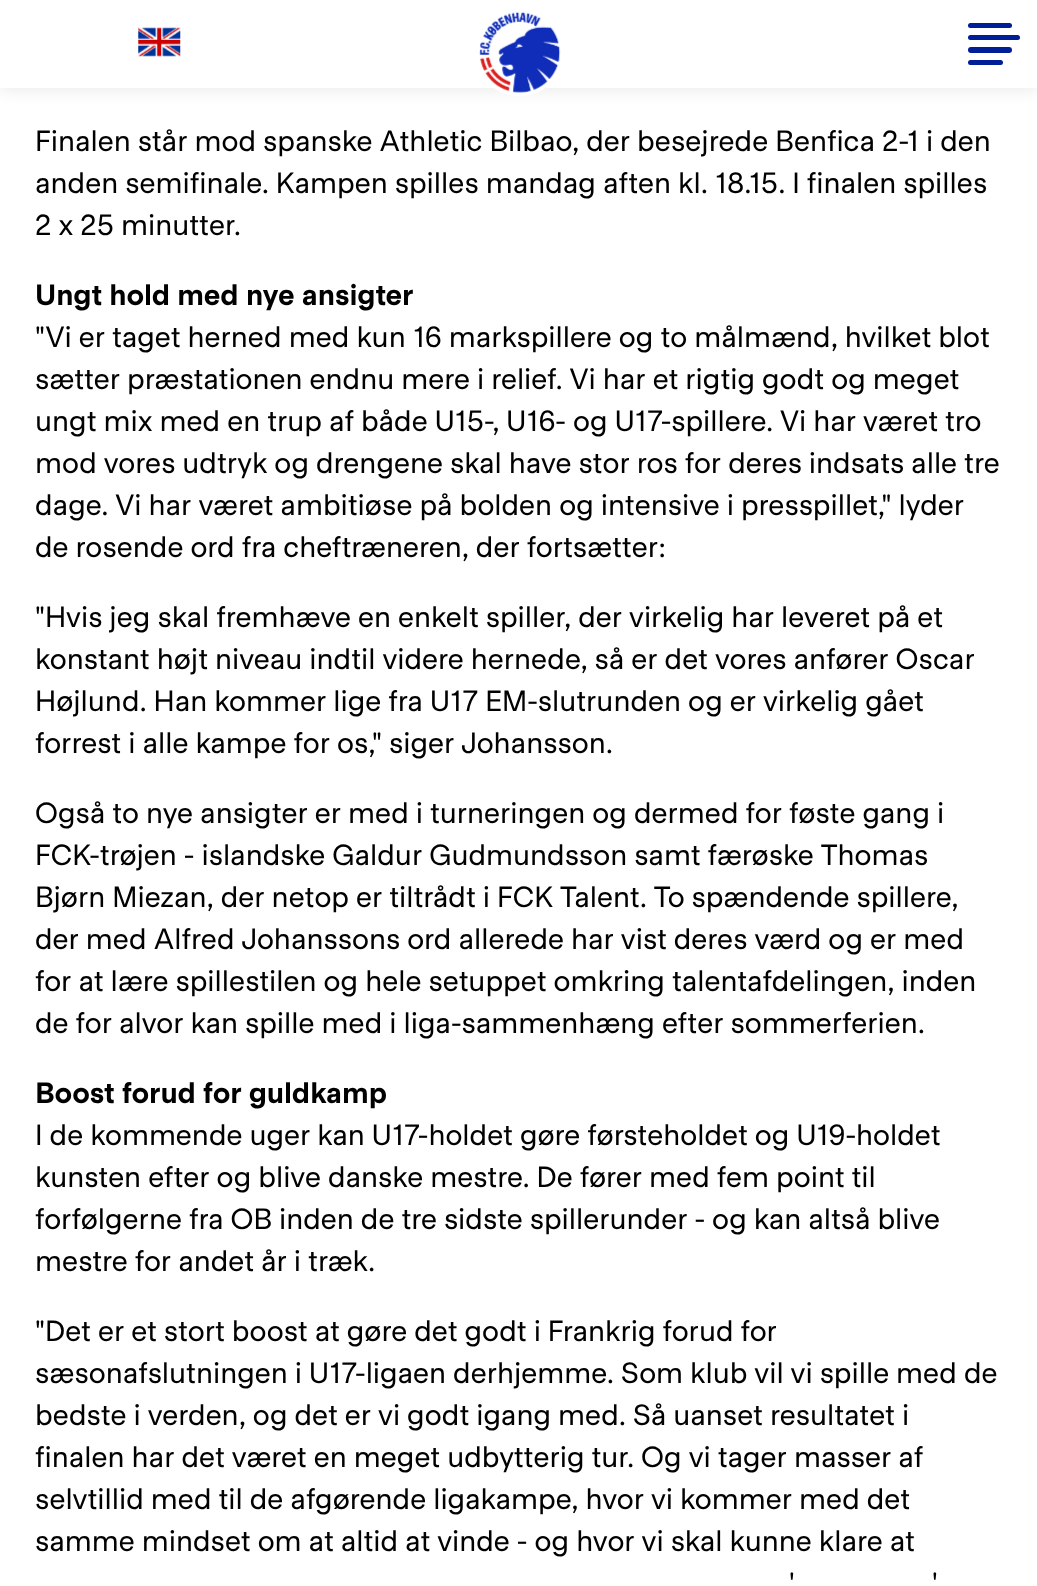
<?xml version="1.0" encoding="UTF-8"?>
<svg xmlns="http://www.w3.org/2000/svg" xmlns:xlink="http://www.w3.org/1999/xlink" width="1037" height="1586">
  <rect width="100%" height="100%" fill="#ffffff" />
  <rect width="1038" height="88" fill="#000000" fill-opacity="0.1" filter="blur(9px)" />
  <rect width="1037" height="88" fill="#ffffff" />
  <image x="138" y="27" width="43" height="30" xlink:href="image1.png" />
  <image x="479" y="12" width="82" height="84" xlink:href="image2.png" />
  <rect x="968" y="35" width="52" height="5" rx="2.5" fill="#001e96" />
  <rect x="968" y="23" width="44" height="5" rx="2.5" fill="#001e96" />
  <rect x="968" y="47" width="44" height="6" rx="3" fill="#001e96" />
  <rect x="968" y="60" width="35" height="5" rx="2.5" fill="#001e96" />
  <text x="35" y="151" style="font-family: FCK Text; font-size: 28px; fill: #000000">Finalen står mod spanske Athletic Bilbao, der besejrede Benfica 2-1 i den</text>
  <text x="35" y="193" style="font-family: FCK Text; font-size: 28px; fill: #000000">anden semifinale. Kampen spilles mandag aften kl. 18.15. I finalen spilles</text>
  <text x="35" y="235" style="font-family: FCK Text; font-size: 28px; fill: #000000">2 x 25 minutter.</text>
  <text x="35" y="305" style="font-family: FCK Text; font-size: 28px; font-weight: bold; fill: #000000">Ungt hold med nye ansigter</text>
  <text x="35" y="347" style="font-family: FCK Text; font-size: 28px; fill: #000000">"Vi er taget herned med kun 16 markspillere og to målmænd, hvilket blot</text>
  <text x="35" y="389" style="font-family: FCK Text; font-size: 28px; fill: #000000">sætter præstationen endnu mere i relief. Vi har et rigtig godt og meget</text>
  <text x="35" y="431" style="font-family: FCK Text; font-size: 28px; fill: #000000">ungt mix med en trup af både U15-, U16- og U17-spillere. Vi har været tro</text>
  <text x="35" y="473" style="font-family: FCK Text; font-size: 28px; fill: #000000">mod vores udtryk og drengene skal have stor ros for deres indsats alle tre</text>
  <text x="35" y="515" style="font-family: FCK Text; font-size: 28px; fill: #000000">dage. Vi har været ambitiøse på bolden og intensive i presspillet," lyder</text>
  <text x="35" y="557" style="font-family: FCK Text; font-size: 28px; fill: #000000">de rosende ord fra cheftræneren, der fortsætter:</text>
  <text x="35" y="627" style="font-family: FCK Text; font-size: 28px; fill: #000000">"Hvis jeg skal fremhæve en enkelt spiller, der virkelig har leveret på et</text>
  <text x="35" y="669" style="font-family: FCK Text; font-size: 28px; fill: #000000">konstant højt niveau indtil videre hernede, så er det vores anfører Oscar</text>
  <text x="35" y="711" style="font-family: FCK Text; font-size: 28px; fill: #000000">Højlund. Han kommer lige fra U17 EM-slutrunden og er virkelig gået</text>
  <text x="35" y="753" style="font-family: FCK Text; font-size: 28px; fill: #000000">forrest i alle kampe for os," siger Johansson.</text>
  <text x="35" y="823" style="font-family: FCK Text; font-size: 28px; fill: #000000">Også to nye ansigter er med i turneringen og dermed for føste gang i</text>
  <text x="35" y="865" style="font-family: FCK Text; font-size: 28px; fill: #000000">FCK-trøjen - islandske Galdur Gudmundsson samt færøske Thomas</text>
  <text x="35" y="907" style="font-family: FCK Text; font-size: 28px; fill: #000000">Bjørn Miezan, der netop er tiltrådt i FCK Talent. To spændende spillere,</text>
  <text x="35" y="949" style="font-family: FCK Text; font-size: 28px; fill: #000000">der med Alfred Johanssons ord allerede har vist deres værd og er med</text>
  <text x="35" y="991" style="font-family: FCK Text; font-size: 28px; fill: #000000">for at lære spillestilen og hele setuppet omkring talentafdelingen, inden</text>
  <text x="35" y="1033" style="font-family: FCK Text; font-size: 28px; fill: #000000">de for alvor kan spille med i liga-sammenhæng efter sommerferien.</text>
  <text x="35" y="1103" style="font-family: FCK Text; font-size: 28px; font-weight: bold; fill: #000000">Boost forud for guldkamp</text>
  <text x="35" y="1145" style="font-family: FCK Text; font-size: 28px; fill: #000000">I de kommende uger kan U17-holdet gøre førsteholdet og U19-holdet</text>
  <text x="35" y="1187" style="font-family: FCK Text; font-size: 28px; fill: #000000">kunsten efter og blive danske mestre. De fører med fem point til</text>
  <text x="35" y="1229" style="font-family: FCK Text; font-size: 28px; fill: #000000">forfølgerne fra OB inden de tre sidste spillerunder - og kan altså blive</text>
  <text x="35" y="1271" style="font-family: FCK Text; font-size: 28px; fill: #000000">mestre for andet år i træk.</text>
  <text x="35" y="1341" style="font-family: FCK Text; font-size: 28px; fill: #000000">"Det er et stort boost at gøre det godt i Frankrig forud for</text>
  <text x="35" y="1383" style="font-family: FCK Text; font-size: 28px; fill: #000000">sæsonafslutningen i U17-ligaen derhjemme. Som klub vil vi spille med de</text>
  <text x="35" y="1425" style="font-family: FCK Text; font-size: 28px; fill: #000000">bedste i verden, og det er vi godt igang med. Så uanset resultatet i</text>
  <text x="35" y="1467" style="font-family: FCK Text; font-size: 28px; fill: #000000">finalen har det været en meget udbytterig tur. Og vi tager masser af</text>
  <text x="35" y="1509" style="font-family: FCK Text; font-size: 28px; fill: #000000">selvtillid med til de afgørende ligakampe, hvor vi kommer med det</text>
  <text x="35" y="1551" style="font-family: FCK Text; font-size: 28px; fill: #000000">samme mindset om at altid at vinde - og hvor vi skal kunne klare at</text>
  <text x="789" y="1593" style="font-family: FCK Text; font-size: 28px; fill: #000000">'</text>
  <text x="932" y="1593" style="font-family: FCK Text; font-size: 28px; fill: #000000">'</text>
</svg>
